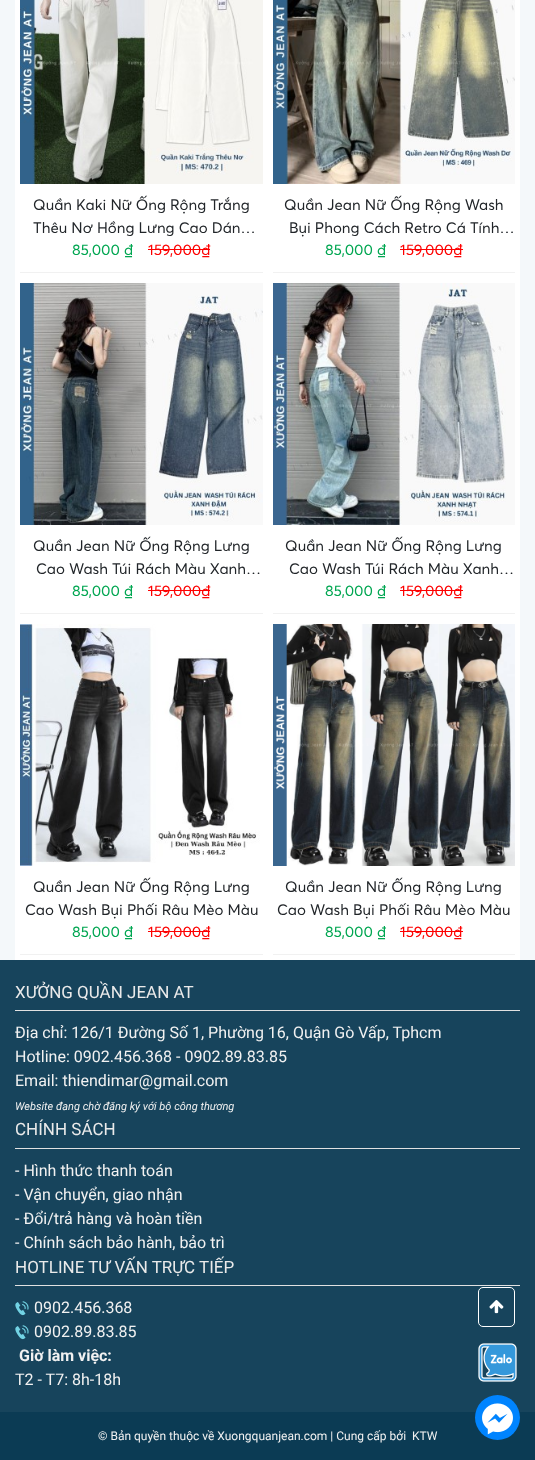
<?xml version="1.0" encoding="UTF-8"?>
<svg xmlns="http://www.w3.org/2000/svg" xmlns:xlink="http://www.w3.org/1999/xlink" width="535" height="1460">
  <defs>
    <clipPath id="clip1"><rect x="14" y="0" width="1" height="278" /></clipPath>
  </defs>
  <rect width="100%" height="100%" fill="#f4f8fa" />
  <rect x="15" width="253" height="278" fill="#ffffff" />
  <g clip-path="url(#clip1)">
    <rect x="15" y="-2" width="253" height="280" fill="#8e8e8e" filter="blur(0.5px)" />
  </g>
  <image x="20" y="0" width="243" height="184" xlink:href="image1.png" />
  <rect x="20" y="272" width="243" height="1" fill="#f1f1f1" />
  <rect x="148" y="249" width="62" height="1" fill="#fd0000" />
  <rect x="268" y="-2" width="252" height="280" fill="#8e8e8e" filter="blur(0.5px)" />
  <rect x="268" width="252" height="278" fill="#ffffff" />
  <image x="273" y="0" width="242" height="184" xlink:href="image2.png" />
  <rect x="273" y="272" width="242" height="1" fill="#f1f1f1" />
  <rect x="400" y="249" width="63" height="1" fill="#fd0000" />
  <rect x="15" y="278" width="253" height="341" fill="#8e8e8e" filter="blur(0.5px)" />
  <rect x="15" y="278" width="253" height="341" fill="#ffffff" />
  <image x="20" y="283" width="243" height="242" xlink:href="image3.png" />
  <rect x="20" y="613" width="243" height="1" fill="#f1f1f1" />
  <rect x="148" y="590" width="62" height="1" fill="#fd0000" />
  <rect x="268" y="278" width="252" height="341" fill="#8e8e8e" filter="blur(0.5px)" />
  <rect x="268" y="278" width="252" height="341" fill="#ffffff" />
  <image x="273" y="283" width="242" height="242" xlink:href="image4.png" />
  <rect x="273" y="613" width="242" height="1" fill="#f1f1f1" />
  <rect x="400" y="590" width="63" height="1" fill="#fd0000" />
  <rect y="960" width="535" height="452" fill="#17445c" />
  <rect x="15" y="619" width="253" height="341" fill="#8e8e8e" filter="blur(0.5px)" />
  <rect x="15" y="619" width="253" height="341" fill="#ffffff" />
  <image x="20" y="624" width="243" height="242" xlink:href="image5.png" />
  <rect x="20" y="954" width="243" height="1" fill="#f1f1f1" />
  <rect x="148" y="931" width="62" height="1" fill="#fd0000" />
  <rect x="268" y="619" width="252" height="341" fill="#8e8e8e" filter="blur(0.5px)" />
  <rect x="268" y="619" width="252" height="341" fill="#ffffff" />
  <image x="273" y="624" width="242" height="242" xlink:href="image6.png" />
  <rect x="273" y="954" width="242" height="1" fill="#f1f1f1" />
  <rect x="400" y="931" width="63" height="1" fill="#fd0000" />
  <rect x="15" y="1010" width="505" height="1" fill="#e1e1e1" />
  <rect x="15" y="1148" width="505" height="1" fill="#e1e1e1" />
  <rect x="15" y="1285" width="505" height="1" fill="#e1e1e1" />
  <image x="15" y="1301" width="14" height="15" xlink:href="image7.png" />
  <image x="15" y="1325" width="14" height="15" xlink:href="image7.png" />
  <rect x="478.5" y="1287.5" width="36" height="39" rx="4.5" fill="none" stroke="#ffffff" />
  <image x="489" y="1300" width="15" height="14" xlink:href="image8.png" />
  <rect y="1412" width="535" height="48" fill="#0b3b54" />
  <image x="478" y="1343" width="39" height="39" xlink:href="image9.png" />
  <circle cx="497.5" cy="1417.5" r="22.5" fill="#0084ff" />
  <image x="482" y="1403" width="31" height="32" xlink:href="image10.png" />
  <text x="33" y="210" style="font-family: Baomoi; font-size: 15px; fill: #212529">Quần Kaki Nữ Ống Rộng Trắng</text>
  <text x="33" y="233" style="font-family: Baomoi; font-size: 15px; fill: #212529">Thêu Nơ Hồng Lưng Cao Dán…</text>
  <text x="72" y="255" style="font-family: Baomoi; font-size: 15px; fill: #00a651">85,000 ₫</text>
  <text x="148" y="255" style="font-family: Baomoi; font-size: 15px; fill: #fd0000">159,000₫</text>
  <text x="284" y="210" style="font-family: Baomoi; font-size: 15px; fill: #212529">Quần Jean Nữ Ống Rộng Wash</text>
  <text x="289" y="233" style="font-family: Baomoi; font-size: 15px; fill: #212529">Bụi Phong Cách Retro Cá Tính…</text>
  <text x="325" y="255" style="font-family: Baomoi; font-size: 15px; fill: #00a651">85,000 ₫</text>
  <text x="400" y="255" style="font-family: Baomoi; font-size: 15px; fill: #fd0000">159,000₫</text>
  <text x="33" y="551" style="font-family: Baomoi; font-size: 15px; fill: #212529">Quần Jean Nữ Ống Rộng Lưng</text>
  <text x="36" y="574" style="font-family: Baomoi; font-size: 15px; fill: #212529">Cao Wash Túi Rách Màu Xanh…</text>
  <text x="72" y="596" style="font-family: Baomoi; font-size: 15px; fill: #00a651">85,000 ₫</text>
  <text x="148" y="596" style="font-family: Baomoi; font-size: 15px; fill: #fd0000">159,000₫</text>
  <text x="285" y="551" style="font-family: Baomoi; font-size: 15px; fill: #212529">Quần Jean Nữ Ống Rộng Lưng</text>
  <text x="289" y="574" style="font-family: Baomoi; font-size: 15px; fill: #212529">Cao Wash Túi Rách Màu Xanh…</text>
  <text x="325" y="596" style="font-family: Baomoi; font-size: 15px; fill: #00a651">85,000 ₫</text>
  <text x="400" y="596" style="font-family: Baomoi; font-size: 15px; fill: #fd0000">159,000₫</text>
  <text x="33" y="892" style="font-family: Baomoi; font-size: 15px; fill: #212529">Quần Jean Nữ Ống Rộng Lưng</text>
  <text x="25" y="915" style="font-family: Baomoi; font-size: 15px; fill: #212529">Cao Wash Bụi Phối Râu Mèo Màu</text>
  <text x="72" y="937" style="font-family: Baomoi; font-size: 15px; fill: #00a651">85,000 ₫</text>
  <text x="148" y="937" style="font-family: Baomoi; font-size: 15px; fill: #fd0000">159,000₫</text>
  <text x="285" y="892" style="font-family: Baomoi; font-size: 15px; fill: #212529">Quần Jean Nữ Ống Rộng Lưng</text>
  <text x="277" y="915" style="font-family: Baomoi; font-size: 15px; fill: #212529">Cao Wash Bụi Phối Râu Mèo Màu</text>
  <text x="325" y="937" style="font-family: Baomoi; font-size: 15px; fill: #00a651">85,000 ₫</text>
  <text x="400" y="937" style="font-family: Baomoi; font-size: 15px; fill: #fd0000">159,000₫</text>
  <text x="15" y="998" style="font-family: Roboto; font-size: 17px; fill: #eaeaea">XƯỞNG QUẦN JEAN AT</text>
  <text x="15" y="1038" style="font-family: Roboto; font-size: 16px; fill: #f1f1f1">Địa chỉ: 126/1 Đường Số 1, Phường 16, Quận Gò Vấp, Tphcm</text>
  <text x="15" y="1062" style="font-family: Roboto; font-size: 16px; fill: #f1f1f1">Hotline: 0902.456.368 - 0902.89.83.85</text>
  <text x="15" y="1086" style="font-family: Roboto; font-size: 16px; fill: #f1f1f1">Email: thiendimar@gmail.com</text>
  <text x="15" y="1110" style="font-family: Roboto; font-size: 11px; font-style: italic; fill: #f1f1f1">Website đang chờ đăng ký với bộ công thương</text>
  <text x="15" y="1135" style="font-family: Roboto; font-size: 17px; fill: #eaeaea">CHÍNH SÁCH</text>
  <text x="15" y="1176" style="font-family: Roboto; font-size: 16px; fill: #f1f1f1">- Hình thức thanh toán</text>
  <text x="15" y="1200" style="font-family: Roboto; font-size: 16px; fill: #f1f1f1">- Vận chuyển, giao nhận</text>
  <text x="15" y="1224" style="font-family: Roboto; font-size: 16px; fill: #f1f1f1">- Đổi/trả hàng và hoàn tiền</text>
  <text x="15" y="1248" style="font-family: Roboto; font-size: 16px; fill: #f1f1f1">- Chính sách bảo hành, bảo trì</text>
  <text x="15" y="1273" style="font-family: Roboto; font-size: 17px; fill: #eaeaea">HOTLINE TƯ VẤN TRỰC TIẾP</text>
  <text x="34" y="1313" style="font-family: Roboto; font-size: 16px; fill: #f1f1f1">0902.456.368</text>
  <text x="34" y="1337" style="font-family: Roboto; font-size: 16px; fill: #f1f1f1">0902.89.83.85</text>
  <text x="19" y="1361" style="font-family: Roboto; font-size: 16px; font-weight: bold; fill: #f1f1f1">Giờ làm việc:</text>
  <text x="15" y="1385" style="font-family: Roboto; font-size: 16px; fill: #f1f1f1">T2 - T7: 8h-18h</text>
  <text x="98" y="1440" style="font-family: Roboto; font-size: 12px; fill: #f1f1f1">© Bản quyền thuộc về Xuongquanjean.com | Cung cấp bởi</text>
  <text x="412" y="1440" style="font-family: Roboto; font-size: 12px; fill: #f1f1f1">KTW</text>
</svg>
